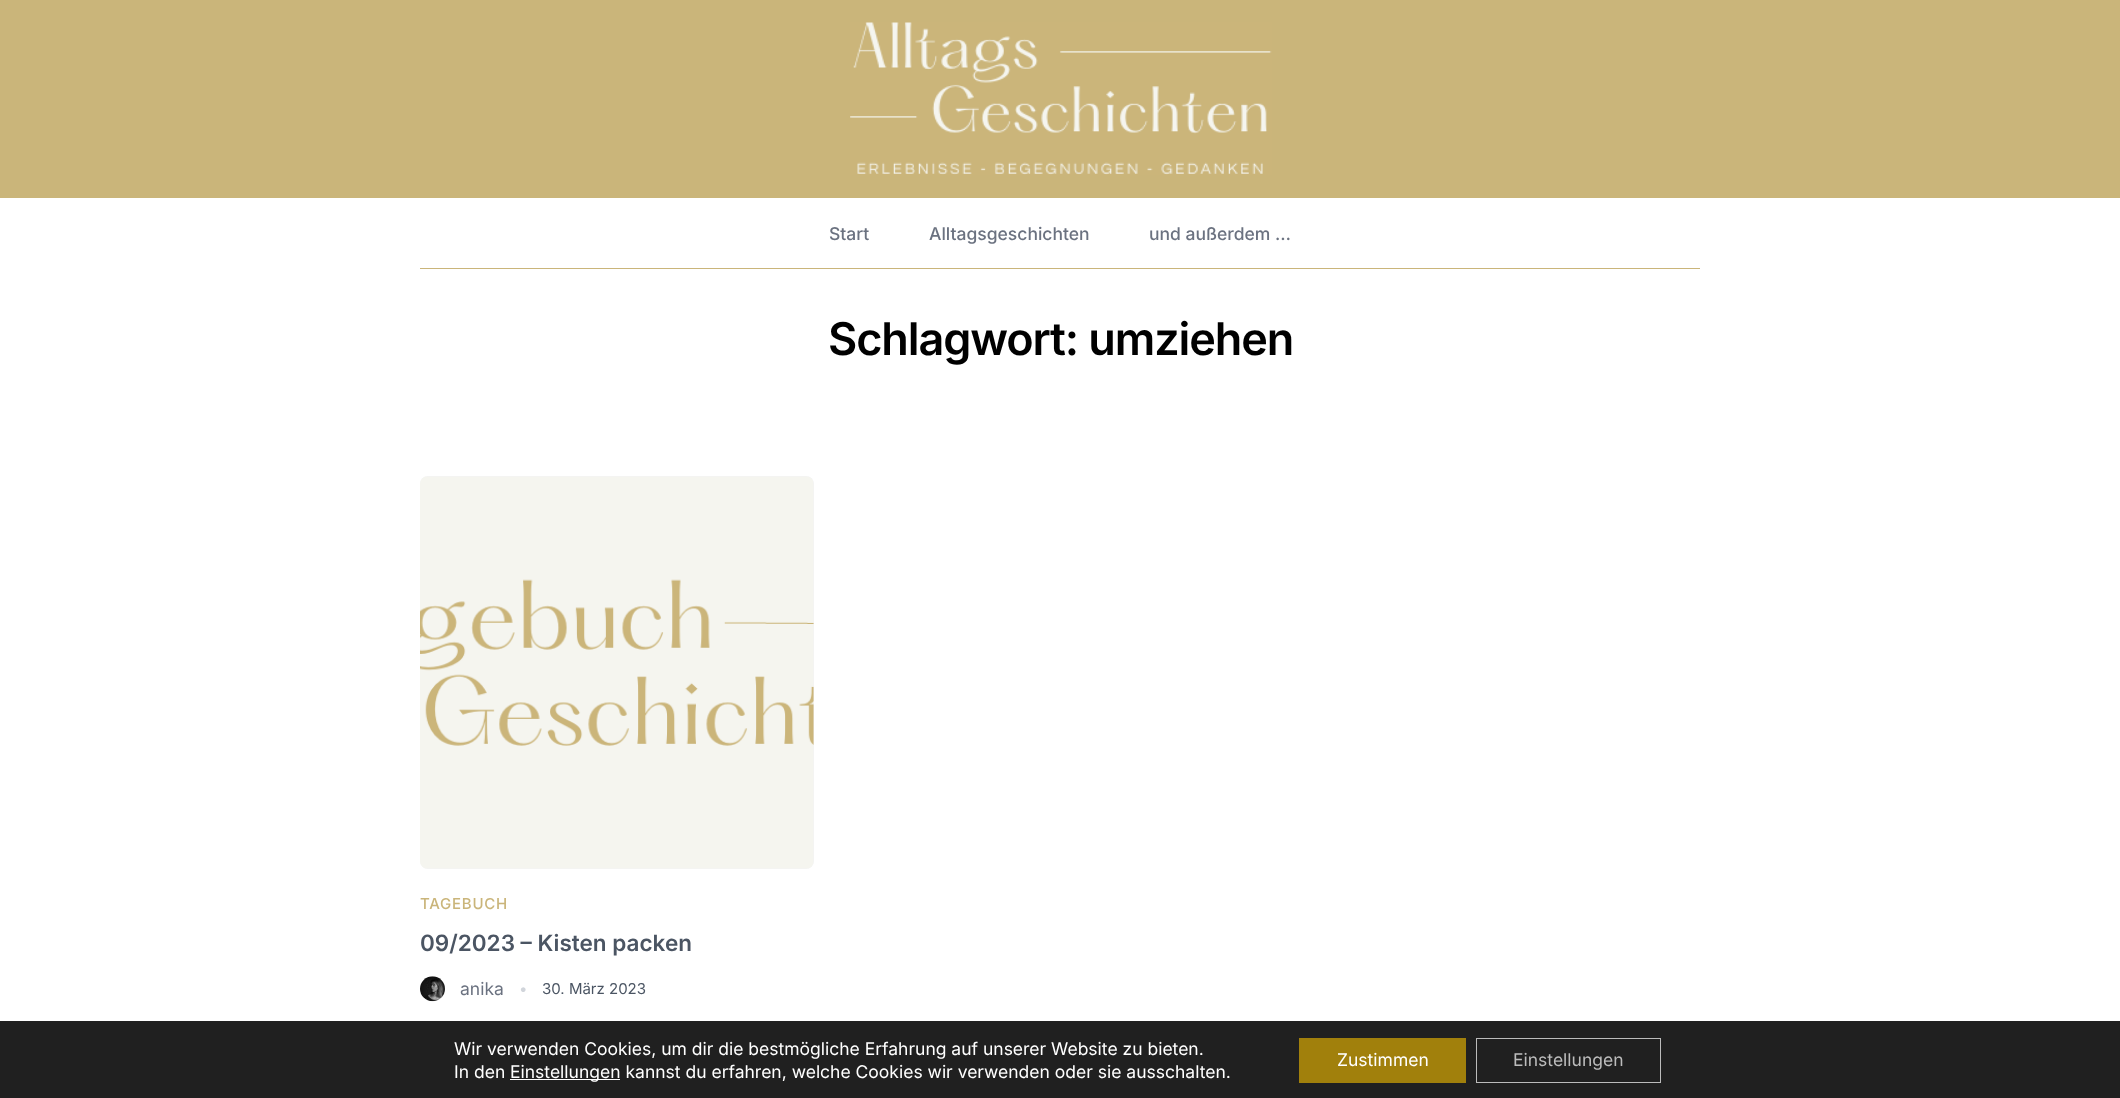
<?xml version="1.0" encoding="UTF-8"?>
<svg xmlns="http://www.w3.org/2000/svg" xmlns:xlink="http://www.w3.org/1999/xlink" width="2120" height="1098">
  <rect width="100%" height="100%" fill="#ffffff" />
  <rect width="2120" height="198" fill="#cab57a" />
  <image x="850" y="22" width="422" height="153" xlink:href="image1.png" />
  <rect x="420" y="268" width="1280" height="1" fill="#cab57a" />
  <rect x="420" y="476" width="394" height="393" rx="8" fill="#f3f4f6" />
  <image x="420" y="476" width="394" height="393" xlink:href="image2.png" />
  <image x="420" y="976" width="25" height="26" xlink:href="image3.png" />
  <rect y="1021" width="2120" height="77" fill="#202020" />
  <rect x="510" y="1079" width="110" height="1" fill="#ffffff" />
  <rect x="1299" y="1038" width="167" height="45" fill="#a1800c" />
  <rect x="1476.5" y="1038.5" width="184" height="44" fill="none" stroke="#bcbcbc" />
  <text x="829" y="240" style="font-family: Inter; font-size: 17.5px; font-weight: 500; fill: #6b7280">Start</text>
  <text x="929" y="240" style="font-family: Inter; font-size: 17.5px; font-weight: 500; fill: #6b7280">Alltagsgeschichten</text>
  <text x="1149" y="240" style="font-family: Inter; font-size: 17.5px; font-weight: 500; fill: #6b7280">und außerdem …</text>
  <text x="828" y="355" style="font-family: Inter; font-size: 45px; font-weight: 600; letter-spacing: -1.1px; fill: #000000">Schlagwort: umziehen</text>
  <text x="420" y="909" style="font-family: Inter; font-size: 15px; font-weight: 500; letter-spacing: 0.75px; fill: #cab57a">TAGEBUCH</text>
  <text x="420" y="951" style="font-family: Inter; font-size: 22.5px; font-weight: 600; fill: #4b5563">09/2023 – Kisten packen</text>
  <text x="460" y="995" style="font-family: Inter; font-size: 17.5px; fill: #6b7280">anika</text>
  <text x="519" y="994" style="font-family: Inter; font-size: 15px; fill: #d1d5db">•</text>
  <text x="542" y="994" style="font-family: Inter; font-size: 15px; fill: #4b5563">30. März 2023</text>
  <text x="454" y="1055" style="font-family: Inter; font-size: 17.5px; fill: #ffffff">Wir verwenden Cookies, um dir die bestmögliche Erfahrung auf unserer Website zu bieten.</text>
  <text x="454" y="1078" style="font-family: Inter; font-size: 17.5px; fill: #ffffff">In den</text>
  <text x="510" y="1078" style="font-family: Inter; font-size: 17.5px; fill: #ffffff">Einstellungen kannst du erfahren, welche Cookies wir verwenden oder sie ausschalten.</text>
  <text x="1337" y="1066" style="font-family: Inter; font-size: 17.5px; fill: #ffffff">Zustimmen</text>
  <text x="1513" y="1066" style="font-family: Inter; font-size: 17.5px; fill: #bcbcbc">Einstellungen</text>
</svg>
